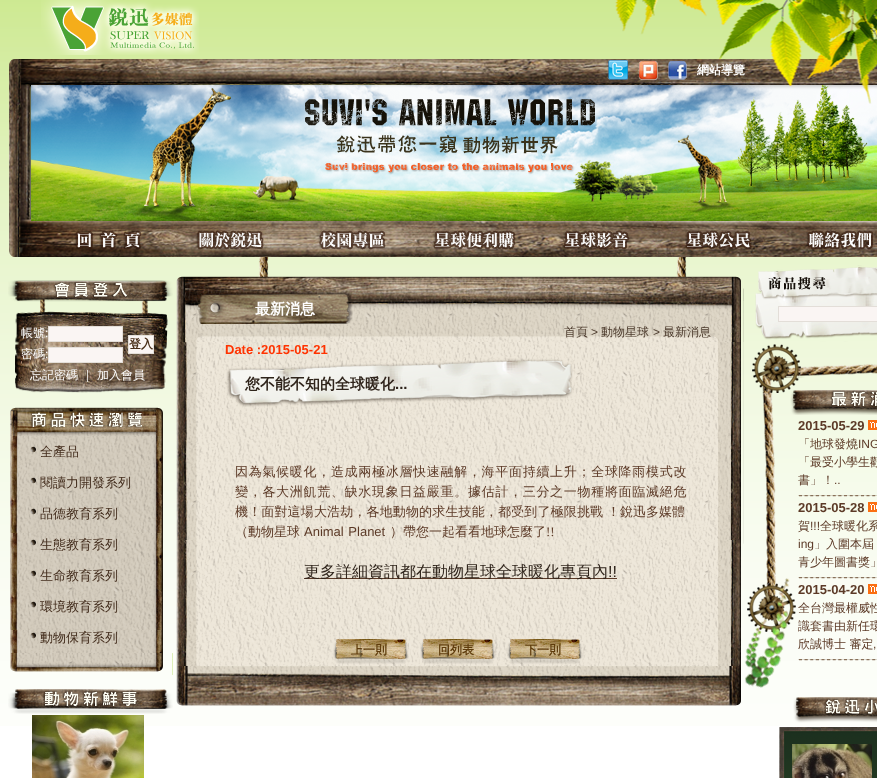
<?xml version="1.0" encoding="UTF-8"?>
<svg xmlns="http://www.w3.org/2000/svg" xmlns:xlink="http://www.w3.org/1999/xlink" width="877" height="778">
  <rect width="100%" height="100%" fill="#ffffff" />
  <image x="0" y="0" width="877" height="726" xlink:href="image1.png" />
  <image x="9" y="59" width="868" height="198" xlink:href="image2.png" />
  <image x="31" y="85" width="846" height="136" xlink:href="image8.png" />
  <image x="615" y="0" width="262" height="104" xlink:href="image3.png" />
  <image x="41" y="0" width="158" height="55" xlink:href="image4.png" />
  <image x="608" y="60" width="20" height="20" xlink:href="image5.png" />
  <image x="638" y="60" width="20" height="20" xlink:href="image6.png" />
  <image x="668" y="61" width="19" height="19" xlink:href="image7.png" />
  <image x="74" y="230" width="68" height="20" xlink:href="image9.png" />
  <image x="195" y="230" width="69" height="20" xlink:href="image10.png" />
  <image x="317" y="230" width="69" height="20" xlink:href="image11.png" />
  <image x="432" y="230" width="84" height="20" xlink:href="image12.png" />
  <image x="562" y="230" width="68" height="20" xlink:href="image13.png" />
  <image x="684" y="230" width="68" height="20" xlink:href="image14.png" />
  <image x="805" y="230" width="69" height="20" xlink:href="image15.png" />
  <image x="15" y="299" width="153" height="94" xlink:href="image16.png" />
  <image x="8" y="280" width="165" height="22" xlink:href="image17.png" />
  <rect x="48.5" y="326.5" width="74" height="15" fill="#faf5f3" stroke="#e3ded8" />
  <rect x="128.5" y="335.5" width="25" height="18" fill="#faf5f3" stroke="#e3ded8" />
  <rect x="48.5" y="347.5" width="74" height="15" fill="#faf5f3" stroke="#e3ded8" />
  <image x="10" y="407" width="153" height="29" xlink:href="image18.png" />
  <image x="10" y="436" width="153" height="217" xlink:href="image19.png" />
  <image x="30" y="446" width="6" height="7" xlink:href="image20.png" />
  <image x="30" y="477" width="6" height="7" xlink:href="image21.png" />
  <image x="30" y="508" width="6" height="7" xlink:href="image22.png" />
  <image x="30" y="539" width="6" height="7" xlink:href="image23.png" />
  <image x="30" y="570" width="6" height="7" xlink:href="image24.png" />
  <image x="30" y="601" width="6" height="7" xlink:href="image25.png" />
  <image x="30" y="632" width="6" height="7" xlink:href="image26.png" />
  <image x="10" y="653" width="163" height="22" xlink:href="image27.png" />
  <image x="8" y="689" width="165" height="25" xlink:href="image28.png" />
  <image x="32" y="715" width="112" height="63" xlink:href="image29.png" />
  <image x="176" y="257" width="565" height="85" xlink:href="image30.png" />
  <image x="198" y="291" width="155" height="33" xlink:href="image31.png" />
  <image x="176" y="342" width="565" height="324" xlink:href="image32.png" />
  <image x="226" y="358" width="347" height="49" xlink:href="image33.png" />
  <rect x="304" y="578" width="313" height="1" fill="#5c3a27" />
  <image x="333" y="639" width="76" height="25" xlink:href="image34.png" />
  <image x="358" y="640" width="29" height="17" xlink:href="image35.png" />
  <image x="420" y="639" width="76" height="25" xlink:href="image36.png" />
  <image x="445" y="640" width="29" height="17" xlink:href="image35.png" />
  <image x="507" y="639" width="76" height="25" xlink:href="image37.png" />
  <image x="532" y="640" width="29" height="17" xlink:href="image35.png" />
  <image x="176" y="666" width="565" height="40" xlink:href="image38.png" />
  <image x="743" y="288" width="134" height="400" xlink:href="image39.png" />
  <image x="743" y="288" width="134" height="54" xlink:href="image40.png" />
  <image x="743" y="265" width="134" height="36" xlink:href="image41.png" />
  <rect x="778.5" y="306.5" width="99" height="15" fill="#faf5f3" stroke="#e3ded8" />
  <image x="790" y="390" width="87" height="25" xlink:href="image42.png" />
  <image x="798" y="495" width="79" height="2" xlink:href="image43.png" />
  <image x="868" y="420" width="9" height="10" xlink:href="image44.png" />
  <image x="798" y="577" width="79" height="2" xlink:href="image45.png" />
  <image x="868" y="502" width="9" height="10" xlink:href="image44.png" />
  <image x="798" y="659" width="79" height="2" xlink:href="image46.png" />
  <image x="868" y="584" width="9" height="10" xlink:href="image44.png" />
  <image x="779" y="727" width="98" height="51" xlink:href="image47.png" />
  <image x="793" y="697" width="84" height="26" xlink:href="image48.png" />
  <image x="792" y="744" width="80" height="34" xlink:href="image49.png" />
  <text x="697" y="74" style="font-family: WenQuanYi Zen Hei; font-size: 12px; font-weight: bold; fill: #ffffff">網站導覽</text>
  <text x="21" y="337" style="font-family: WenQuanYi Zen Hei; font-size: 12px; font-weight: 500; fill: #ffffff">帳號</text>
  <text x="45" y="337" style="font-family: Liberation Sans; font-size: 12px; fill: #ffffff">:</text>
  <text x="129" y="348" style="font-family: WenQuanYi Zen Hei; font-size: 12px; font-weight: bold; fill: #472c16">登入</text>
  <text x="21" y="358" style="font-family: WenQuanYi Zen Hei; font-size: 12px; font-weight: 500; fill: #ffffff">密碼</text>
  <text x="45" y="358" style="font-family: Liberation Sans; font-size: 12px; fill: #ffffff">:</text>
  <text x="30" y="379" style="font-family: WenQuanYi Zen Hei; font-size: 12px; font-weight: 500; fill: #ffffff">忘記密碼 ｜ 加入會員</text>
  <text x="40" y="456" style="font-family: WenQuanYi Zen Hei; font-size: 13px; font-weight: 500; fill: #432d1d">全產品</text>
  <text x="40" y="487" style="font-family: WenQuanYi Zen Hei; font-size: 13px; font-weight: 500; fill: #432d1d">閱讀力開發系列</text>
  <text x="40" y="518" style="font-family: WenQuanYi Zen Hei; font-size: 13px; font-weight: 500; fill: #432d1d">品德教育系列</text>
  <text x="40" y="549" style="font-family: WenQuanYi Zen Hei; font-size: 13px; font-weight: 500; fill: #432d1d">生態教育系列</text>
  <text x="40" y="580" style="font-family: WenQuanYi Zen Hei; font-size: 13px; font-weight: 500; fill: #432d1d">生命教育系列</text>
  <text x="40" y="611" style="font-family: WenQuanYi Zen Hei; font-size: 13px; font-weight: 500; fill: #432d1d">環境教育系列</text>
  <text x="40" y="642" style="font-family: WenQuanYi Zen Hei; font-size: 13px; font-weight: 500; fill: #432d1d">動物保育系列</text>
  <text x="255" y="314" style="font-family: WenQuanYi Zen Hei; font-size: 15px; font-weight: bold; fill: #ffffff">最新消息</text>
  <text x="564" y="336" style="font-family: WenQuanYi Zen Hei; font-size: 12px; font-weight: 500; fill: #4c3b2d">首頁</text>
  <text x="591" y="336" style="font-family: Liberation Sans; font-size: 12px; fill: #4c3b2d">&gt;</text>
  <text x="601" y="336" style="font-family: WenQuanYi Zen Hei; font-size: 12px; font-weight: 500; fill: #4c3b2d">動物星球</text>
  <text x="653" y="336" style="font-family: Liberation Sans; font-size: 12px; fill: #4c3b2d">&gt;</text>
  <text x="663" y="336" style="font-family: WenQuanYi Zen Hei; font-size: 12px; font-weight: 500; fill: #4c3b2d">最新消息</text>
  <text x="225" y="354" style="font-family: Liberation Sans; font-size: 13px; font-weight: bold; fill: #ff3300">Date :2015-05-21</text>
  <text x="245" y="389" style="font-family: WenQuanYi Zen Hei; font-size: 15px; font-weight: bold; fill: #2f241b">您不能不知的全球暖化</text>
  <text x="395" y="389" style="font-family: Liberation Sans; font-size: 15px; font-weight: bold; fill: #2f241b">...</text>
  <text x="235" y="476" style="font-family: WenQuanYi Zen Hei; font-size: 13px; font-weight: 500; letter-spacing: 0.7px; fill: #5c3a27">因為氣候暖化，造成兩極冰層快速融解，海平面持續上升；全球降雨模式改</text>
  <text x="235" y="496" style="font-family: WenQuanYi Zen Hei; font-size: 13px; font-weight: 500; letter-spacing: 0.7px; fill: #5c3a27">變，各大洲飢荒、缺水現象日益嚴重。據估計，三分之一物種將面臨滅絕危</text>
  <text x="235" y="516" style="font-family: WenQuanYi Zen Hei; font-size: 13px; font-weight: 500; letter-spacing: 0.15px; fill: #5c3a27">機！面對這場大浩劫，各地動物的求生技能，都受到了極限挑戰</text>
  <text x="607" y="516" style="font-family: WenQuanYi Zen Hei; font-size: 13px; font-weight: 500; fill: #5c3a27">！銳迅多媒體</text>
  <text x="235" y="536" style="font-family: WenQuanYi Zen Hei; font-size: 13px; font-weight: 500; fill: #5c3a27">（動物星球</text>
  <text x="304" y="536" word-spacing="1" style="font-family: Liberation Sans; font-size: 13px; fill: #5c3a27">Animal Planet</text>
  <text x="390" y="536" style="font-family: WenQuanYi Zen Hei; font-size: 13px; font-weight: 500; fill: #5c3a27">）帶您一起看看地球怎麼了</text>
  <text x="546" y="536" style="font-family: Liberation Serif; font-size: 13px; fill: #5c3a27">!!</text>
  <text x="304" y="577" style="font-family: WenQuanYi Zen Hei; font-size: 16px; font-weight: 500; fill: #2f241b">更多詳細資訊都在動物星球全球暖化專頁內</text>
  <text x="608" y="577" style="font-family: Liberation Sans; font-size: 16px; fill: #2f241b">!!</text>
  <text x="351" y="654" style="font-family: WenQuanYi Zen Hei; font-size: 12px; font-weight: bold; fill: #5f3c0c">上一則</text>
  <text x="438" y="654" style="font-family: WenQuanYi Zen Hei; font-size: 12px; font-weight: bold; fill: #5f3c0c">回列表</text>
  <text x="525" y="654" style="font-family: WenQuanYi Zen Hei; font-size: 12px; font-weight: bold; fill: #5f3c0c">下一則</text>
  <text x="798" y="430" style="font-family: Liberation Sans; font-size: 13px; font-weight: bold; fill: #5c3a27">2015-05-29</text>
  <text x="798" y="448" style="font-family: WenQuanYi Zen Hei; font-size: 12px; font-weight: 500; fill: #5c3a27">「地球發燒</text>
  <text x="858" y="448" style="font-family: Liberation Sans; font-size: 12px; fill: #5c3a27">ING</text>
  <text x="798" y="466" style="font-family: WenQuanYi Zen Hei; font-size: 12px; font-weight: 500; fill: #5c3a27">「最受小學生歡</text>
  <text x="798" y="484" style="font-family: WenQuanYi Zen Hei; font-size: 12px; font-weight: 500; fill: #5c3a27">書」！</text>
  <text x="834" y="484" style="font-family: Liberation Sans; font-size: 12px; fill: #5c3a27">..</text>
  <text x="798" y="512" style="font-family: Liberation Sans; font-size: 13px; font-weight: bold; fill: #5c3a27">2015-05-28</text>
  <text x="798" y="530" style="font-family: WenQuanYi Zen Hei; font-size: 12px; font-weight: 500; fill: #5c3a27">賀</text>
  <text x="810" y="530" style="font-family: Liberation Sans; font-size: 12px; fill: #5c3a27">!!!</text>
  <text x="820" y="530" style="font-family: WenQuanYi Zen Hei; font-size: 12px; font-weight: 500; fill: #5c3a27">全球暖化系</text>
  <text x="798" y="548" style="font-family: Liberation Sans; font-size: 12px; fill: #5c3a27">ing</text>
  <text x="814" y="548" style="font-family: WenQuanYi Zen Hei; font-size: 12px; font-weight: 500; fill: #5c3a27">」入圍本屆</text>
  <text x="798" y="566" style="font-family: WenQuanYi Zen Hei; font-size: 12px; font-weight: 500; fill: #5c3a27">青少年圖書獎」</text>
  <text x="798" y="594" style="font-family: Liberation Sans; font-size: 13px; font-weight: bold; fill: #5c3a27">2015-04-20</text>
  <text x="798" y="612" style="font-family: WenQuanYi Zen Hei; font-size: 12px; font-weight: 500; fill: #5c3a27">全台灣最權威性</text>
  <text x="798" y="630" style="font-family: WenQuanYi Zen Hei; font-size: 12px; font-weight: 500; fill: #5c3a27">識套書由新任環</text>
  <text x="798" y="648" style="font-family: WenQuanYi Zen Hei; font-size: 12px; font-weight: 500; fill: #5c3a27">欣誠博士 審定</text>
  <text x="873" y="648" style="font-family: Liberation Sans; font-size: 12px; fill: #5c3a27">,</text>
</svg>
